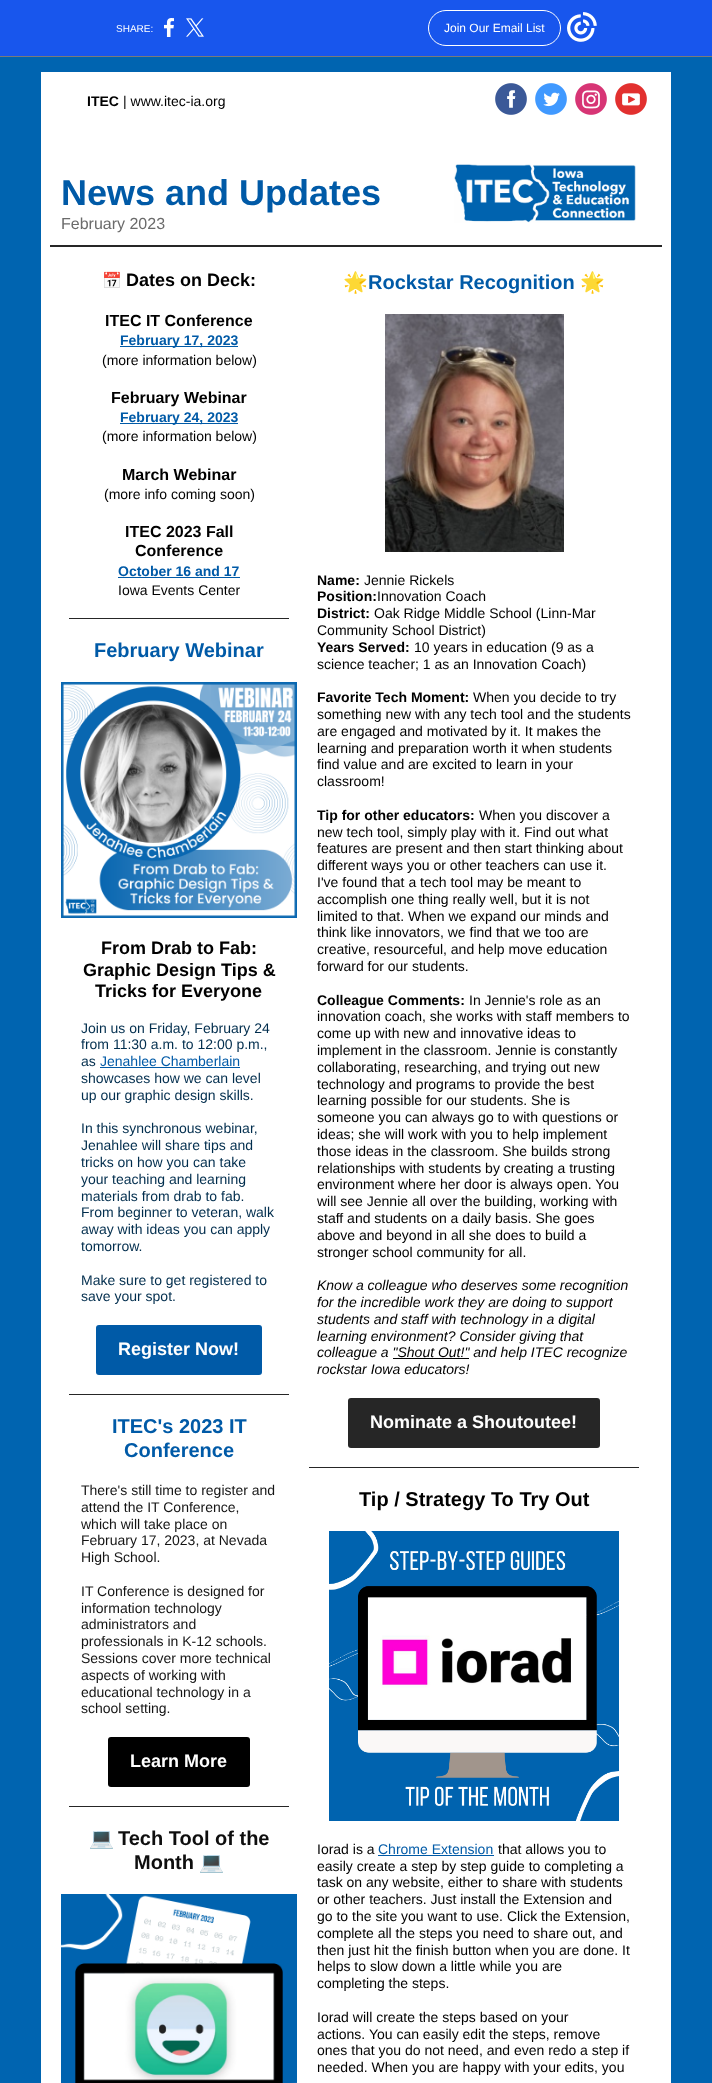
<?xml version="1.0" encoding="UTF-8"?>
<svg xmlns="http://www.w3.org/2000/svg" xmlns:xlink="http://www.w3.org/1999/xlink" width="712" height="2083">
  <rect width="100%" height="100%" fill="#0064b0" />
  <rect width="712" height="56" fill="#1856ed" />
  <rect y="56" width="712" height="1" fill="#7a7a7a" />
  <image x="164" y="18" width="10" height="19" xlink:href="image1.png" />
  <image x="186" y="18" width="18" height="19" xlink:href="image2.png" />
  <rect x="428.5" y="10.5" width="132" height="35" rx="17.5" fill="none" stroke="#ffffff" />
  <image x="567" y="12" width="30" height="30" xlink:href="image3.png" />
  <rect x="41" y="72" width="630" height="2011" fill="#ffffff" />
  <image x="495" y="83" width="32" height="32" xlink:href="image4.png" />
  <image x="535" y="83" width="32" height="32" xlink:href="image5.png" />
  <image x="575" y="83" width="32" height="32" xlink:href="image6.png" />
  <image x="615" y="83" width="32" height="32" xlink:href="image7.png" />
  <image x="454" y="164" width="182" height="59" xlink:href="image8.png" />
  <rect x="50" y="245" width="612" height="2" fill="#262626" />
  <rect x="120" y="346" width="118" height="1" fill="#005aa7" />
  <rect x="120" y="423" width="118" height="1" fill="#005aa7" />
  <rect x="118" y="577" width="122" height="1" fill="#005aa7" />
  <rect x="69" y="618" width="220" height="1" fill="#262626" />
  <image x="61" y="682" width="236" height="236" xlink:href="image9.png" />
  <rect x="100" y="1067" width="140" height="1" fill="#005aa7" />
  <rect x="96" y="1325" width="166" height="50" rx="3" fill="#005aa7" />
  <rect x="69" y="1394" width="220" height="1" fill="#262626" />
  <rect x="108" y="1737" width="142" height="50" rx="3" fill="#000000" />
  <rect x="69" y="1806" width="220" height="1" fill="#262626" />
  <image x="61" y="1894" width="236" height="189" xlink:href="image10.png" />
  <image x="385" y="314" width="179" height="238" xlink:href="image11.png" />
  <rect x="393" y="1358" width="76" height="1" fill="#000000" />
  <rect x="348" y="1398" width="252" height="50" rx="3" fill="#262626" />
  <rect x="309" y="1467" width="330" height="1" fill="#262626" />
  <image x="329" y="1531" width="290" height="290" xlink:href="image12.png" />
  <rect x="378" y="1855" width="116" height="1" fill="#005aa7" />
  <text x="116" y="32" style="font-family: Liberation Sans; font-size: 10px; fill: #ffffff">SHARE:</text>
  <text x="444" y="32" style="font-family: Liberation Sans; font-size: 12px; fill: #ffffff">Join Our Email List</text>
  <text x="87" y="106" style="font-family: Liberation Sans; font-size: 14px; font-weight: bold; fill: #000000">ITEC</text>
  <text x="123" y="106" style="font-family: Liberation Sans; font-size: 14px; fill: #000000">| www.itec-ia.org</text>
  <text x="61" y="205" style="font-family: Liberation Sans; font-size: 36px; font-weight: bold; fill: #005aa7">News and Updates</text>
  <text x="61" y="229" style="font-family: Liberation Sans; font-size: 16px; fill: #6b6b6b">February 2023</text>
  <text x="102" y="286" style="font-family: Noto Color Emoji; font-size: 16px; font-weight: bold; fill: #c8c8c8">📅</text>
  <text x="126" y="286" style="font-family: Liberation Sans; font-size: 18px; font-weight: bold; fill: #000000">Dates on Deck:</text>
  <text x="105" y="326" style="font-family: Liberation Sans; font-size: 16px; font-weight: bold; fill: #000000">ITEC IT Conference</text>
  <text x="120" y="345" style="font-family: Liberation Sans; font-size: 14px; font-weight: bold; fill: #005aa7">February 17, 2023</text>
  <text x="102" y="365" style="font-family: Liberation Sans; font-size: 14px; fill: #000000">(more information below)</text>
  <text x="111" y="403" style="font-family: Liberation Sans; font-size: 16px; font-weight: bold; fill: #000000">February Webinar</text>
  <text x="120" y="422" style="font-family: Liberation Sans; font-size: 14px; font-weight: bold; fill: #005aa7">February 24, 2023</text>
  <text x="102" y="441" style="font-family: Liberation Sans; font-size: 14px; fill: #000000">(more information below)</text>
  <text x="122" y="480" style="font-family: Liberation Sans; font-size: 16px; font-weight: bold; fill: #000000">March Webinar</text>
  <text x="104" y="499" style="font-family: Liberation Sans; font-size: 14px; fill: #000000">(more info coming soon)</text>
  <text x="125" y="537" style="font-family: Liberation Sans; font-size: 16px; font-weight: bold; fill: #000000">ITEC 2023 Fall</text>
  <text x="135" y="556" style="font-family: Liberation Sans; font-size: 16px; font-weight: bold; fill: #000000">Conference</text>
  <text x="118" y="576" style="font-family: Liberation Sans; font-size: 14px; font-weight: bold; fill: #005aa7">October 16 and 17</text>
  <text x="118" y="595" style="font-family: Liberation Sans; font-size: 14px; fill: #000000">Iowa Events Center</text>
  <text x="94" y="657" style="font-family: Liberation Sans; font-size: 20px; font-weight: bold; fill: #005aa7">February Webinar</text>
  <text x="101" y="954" style="font-family: Liberation Sans; font-size: 18px; font-weight: bold; fill: #000000">From Drab to Fab:</text>
  <text x="83" y="976" style="font-family: Liberation Sans; font-size: 18px; font-weight: bold; fill: #000000">Graphic Design Tips &amp;</text>
  <text x="95" y="997" style="font-family: Liberation Sans; font-size: 18px; font-weight: bold; fill: #000000">Tricks for Everyone</text>
  <text x="81" y="1033" style="font-family: Liberation Sans; font-size: 14px; fill: #002d4d">Join us on Friday, February 24</text>
  <text x="81" y="1049" style="font-family: Liberation Sans; font-size: 14px; fill: #002d4d">from 11:30 a.m. to 12:00 p.m.,</text>
  <text x="81" y="1066" style="font-family: Liberation Sans; font-size: 14px; fill: #002d4d">as</text>
  <text x="100" y="1066" style="font-family: Liberation Sans; font-size: 14px; fill: #005aa7">Jenahlee Chamberlain</text>
  <text x="81" y="1083" style="font-family: Liberation Sans; font-size: 14px; fill: #002d4d">showcases how we can level</text>
  <text x="81" y="1100" style="font-family: Liberation Sans; font-size: 14px; fill: #002d4d">up our graphic design skills.</text>
  <text x="81" y="1133" style="font-family: Liberation Sans; font-size: 14px; fill: #002d4d">In this synchronous webinar,</text>
  <text x="81" y="1150" style="font-family: Liberation Sans; font-size: 14px; fill: #002d4d">Jenahlee will share tips and</text>
  <text x="81" y="1167" style="font-family: Liberation Sans; font-size: 14px; fill: #002d4d">tricks on how you can take</text>
  <text x="81" y="1184" style="font-family: Liberation Sans; font-size: 14px; fill: #002d4d">your teaching and learning</text>
  <text x="81" y="1201" style="font-family: Liberation Sans; font-size: 14px; fill: #002d4d">materials from drab to fab.</text>
  <text x="81" y="1217" style="font-family: Liberation Sans; font-size: 14px; fill: #002d4d">From beginner to veteran, walk</text>
  <text x="81" y="1234" style="font-family: Liberation Sans; font-size: 14px; fill: #002d4d">away with ideas you can apply</text>
  <text x="81" y="1251" style="font-family: Liberation Sans; font-size: 14px; fill: #002d4d">tomorrow.</text>
  <text x="81" y="1285" style="font-family: Liberation Sans; font-size: 14px; fill: #002d4d">Make sure to get registered to</text>
  <text x="81" y="1301" style="font-family: Liberation Sans; font-size: 14px; fill: #002d4d">save your spot.</text>
  <text x="118" y="1355" style="font-family: Liberation Sans; font-size: 18px; font-weight: bold; fill: #ffffff">Register Now!</text>
  <text x="112" y="1433" style="font-family: Liberation Sans; font-size: 20px; font-weight: bold; fill: #005aa7">ITEC's 2023 IT</text>
  <text x="124" y="1457" style="font-family: Liberation Sans; font-size: 20px; font-weight: bold; fill: #005aa7">Conference</text>
  <text x="81" y="1495" style="font-family: Liberation Sans; font-size: 14px; fill: #141414">There's still time to register and</text>
  <text x="81" y="1512" style="font-family: Liberation Sans; font-size: 14px; fill: #141414">attend the IT Conference,</text>
  <text x="81" y="1529" style="font-family: Liberation Sans; font-size: 14px; fill: #141414">which will take place on</text>
  <text x="81" y="1545" style="font-family: Liberation Sans; font-size: 14px; fill: #141414">February 17, 2023, at Nevada</text>
  <text x="81" y="1562" style="font-family: Liberation Sans; font-size: 14px; fill: #141414">High School.</text>
  <text x="81" y="1596" style="font-family: Liberation Sans; font-size: 14px; fill: #141414">IT Conference is designed for</text>
  <text x="81" y="1613" style="font-family: Liberation Sans; font-size: 14px; fill: #141414">information technology</text>
  <text x="81" y="1629" style="font-family: Liberation Sans; font-size: 14px; fill: #141414">administrators and</text>
  <text x="81" y="1646" style="font-family: Liberation Sans; font-size: 14px; fill: #141414">professionals in K-12 schools.</text>
  <text x="81" y="1663" style="font-family: Liberation Sans; font-size: 14px; fill: #141414">Sessions cover more technical</text>
  <text x="81" y="1680" style="font-family: Liberation Sans; font-size: 14px; fill: #141414">aspects of working with</text>
  <text x="81" y="1697" style="font-family: Liberation Sans; font-size: 14px; fill: #141414">educational technology in a</text>
  <text x="81" y="1713" style="font-family: Liberation Sans; font-size: 14px; fill: #141414">school setting.</text>
  <text x="130" y="1767" style="font-family: Liberation Sans; font-size: 18px; font-weight: bold; fill: #ffffff">Learn More</text>
  <text x="89" y="1845" style="font-family: Noto Color Emoji; font-size: 20px; fill: #000000">💻</text>
  <text x="118" y="1845" style="font-family: Liberation Sans; font-size: 20px; font-weight: bold; fill: #0e0e0e">Tech Tool of the</text>
  <text x="134" y="1869" style="font-family: Liberation Sans; font-size: 20px; font-weight: bold; fill: #0e0e0e">Month</text>
  <text x="199" y="1869" style="font-family: Noto Color Emoji; font-size: 20px; fill: #000000">💻</text>
  <text x="343" y="289" style="font-family: Noto Color Emoji; font-size: 20px; font-weight: bold; fill: #005aa7">🌟</text>
  <text x="368" y="289" style="font-family: Liberation Sans; font-size: 20px; font-weight: bold; fill: #005aa7">Rockstar Recognition</text>
  <text x="580" y="289" style="font-family: Noto Color Emoji; font-size: 20px; font-weight: bold; fill: #005aa7">🌟</text>
  <text x="317" y="585" style="font-family: Liberation Sans; font-size: 14px; font-weight: bold; fill: #000000">Name:</text>
  <text x="364" y="585" style="font-family: Liberation Sans; font-size: 14px; fill: #000000">Jennie Rickels</text>
  <text x="317" y="601" style="font-family: Liberation Sans; font-size: 14px; font-weight: bold; fill: #000000">Position:</text>
  <text x="377" y="601" style="font-family: Liberation Sans; font-size: 14px; fill: #000000">Innovation Coach</text>
  <text x="317" y="618" style="font-family: Liberation Sans; font-size: 14px; font-weight: bold; fill: #000000">District:</text>
  <text x="374" y="618" style="font-family: Liberation Sans; font-size: 14px; fill: #000000">Oak Ridge Middle School (Linn-Mar</text>
  <text x="317" y="635" style="font-family: Liberation Sans; font-size: 14px; fill: #000000">Community School District)</text>
  <text x="317" y="652" style="font-family: Liberation Sans; font-size: 14px; font-weight: bold; fill: #000000">Years Served:</text>
  <text x="414" y="652" style="font-family: Liberation Sans; font-size: 14px; fill: #000000">10 years in education (9 as a</text>
  <text x="317" y="669" style="font-family: Liberation Sans; font-size: 14px; fill: #000000">science teacher; 1 as an Innovation Coach)</text>
  <text x="317" y="702" style="font-family: Liberation Sans; font-size: 14px; font-weight: bold; fill: #000000">Favorite Tech Moment:</text>
  <text x="473" y="702" style="font-family: Liberation Sans; font-size: 14px; fill: #000000">When you decide to try</text>
  <text x="317" y="719" style="font-family: Liberation Sans; font-size: 14px; fill: #000000">something new with any tech tool and the students</text>
  <text x="317" y="736" style="font-family: Liberation Sans; font-size: 14px; fill: #000000">are engaged and motivated by it. It makes the</text>
  <text x="317" y="753" style="font-family: Liberation Sans; font-size: 14px; fill: #000000">learning and preparation worth it when students</text>
  <text x="317" y="769" style="font-family: Liberation Sans; font-size: 14px; fill: #000000">find value and are excited to learn in your</text>
  <text x="317" y="786" style="font-family: Liberation Sans; font-size: 14px; fill: #000000">classroom!</text>
  <text x="317" y="820" style="font-family: Liberation Sans; font-size: 14px; font-weight: bold; fill: #000000">Tip for other educators:</text>
  <text x="479" y="820" style="font-family: Liberation Sans; font-size: 14px; fill: #000000">When you discover a</text>
  <text x="317" y="837" style="font-family: Liberation Sans; font-size: 14px; fill: #000000">new tech tool, simply play with it. Find out what</text>
  <text x="317" y="853" style="font-family: Liberation Sans; font-size: 14px; fill: #000000">features are present and then start thinking about</text>
  <text x="317" y="870" style="font-family: Liberation Sans; font-size: 14px; fill: #000000">different ways you or other teachers can use it.</text>
  <text x="317" y="887" style="font-family: Liberation Sans; font-size: 14px; fill: #000000">I've found that a tech tool may be meant to</text>
  <text x="317" y="904" style="font-family: Liberation Sans; font-size: 14px; fill: #000000">accomplish one thing really well, but it is not</text>
  <text x="317" y="921" style="font-family: Liberation Sans; font-size: 14px; fill: #000000">limited to that. When we expand our minds and</text>
  <text x="317" y="937" style="font-family: Liberation Sans; font-size: 14px; fill: #000000">think like innovators, we find that we too are</text>
  <text x="317" y="954" style="font-family: Liberation Sans; font-size: 14px; fill: #000000">creative, resourceful, and help move education</text>
  <text x="317" y="971" style="font-family: Liberation Sans; font-size: 14px; fill: #000000">forward for our students.</text>
  <text x="317" y="1005" style="font-family: Liberation Sans; font-size: 14px; font-weight: bold; fill: #000000">Colleague Comments:</text>
  <text x="469" y="1005" style="font-family: Liberation Sans; font-size: 14px; fill: #000000">In Jennie's role as an</text>
  <text x="317" y="1021" style="font-family: Liberation Sans; font-size: 14px; fill: #000000">innovation coach, she works with staff members to</text>
  <text x="317" y="1038" style="font-family: Liberation Sans; font-size: 14px; fill: #000000">come up with new and innovative ideas to</text>
  <text x="317" y="1055" style="font-family: Liberation Sans; font-size: 14px; fill: #000000">implement in the classroom. Jennie is constantly</text>
  <text x="317" y="1072" style="font-family: Liberation Sans; font-size: 14px; fill: #000000">collaborating, researching, and trying out new</text>
  <text x="317" y="1089" style="font-family: Liberation Sans; font-size: 14px; fill: #000000">technology and programs to provide the best</text>
  <text x="317" y="1105" style="font-family: Liberation Sans; font-size: 14px; fill: #000000">learning possible for our students. She is</text>
  <text x="317" y="1122" style="font-family: Liberation Sans; font-size: 14px; fill: #000000">someone you can always go to with questions or</text>
  <text x="317" y="1139" style="font-family: Liberation Sans; font-size: 14px; fill: #000000">ideas; she will work with you to help implement</text>
  <text x="317" y="1156" style="font-family: Liberation Sans; font-size: 14px; fill: #000000">those ideas in the classroom. She builds strong</text>
  <text x="317" y="1173" style="font-family: Liberation Sans; font-size: 14px; fill: #000000">relationships with students by creating a trusting</text>
  <text x="317" y="1189" style="font-family: Liberation Sans; font-size: 14px; fill: #000000">environment where her door is always open. You</text>
  <text x="317" y="1206" style="font-family: Liberation Sans; font-size: 14px; fill: #000000">will see Jennie all over the building, working with</text>
  <text x="317" y="1223" style="font-family: Liberation Sans; font-size: 14px; fill: #000000">staff and students on a daily basis. She goes</text>
  <text x="317" y="1240" style="font-family: Liberation Sans; font-size: 14px; fill: #000000">above and beyond in all she does to build a</text>
  <text x="317" y="1257" style="font-family: Liberation Sans; font-size: 14px; fill: #000000">stronger school community for all.</text>
  <text x="317" y="1290" style="font-family: Liberation Sans; font-size: 14px; font-style: italic; fill: #000000">Know a colleague who deserves some recognition</text>
  <text x="317" y="1307" style="font-family: Liberation Sans; font-size: 14px; font-style: italic; fill: #000000">for the incredible work they are doing to support</text>
  <text x="317" y="1324" style="font-family: Liberation Sans; font-size: 14px; font-style: italic; fill: #000000">students and staff with technology in a digital</text>
  <text x="317" y="1341" style="font-family: Liberation Sans; font-size: 14px; font-style: italic; fill: #000000">learning environment? Consider giving that</text>
  <text x="317" y="1357" style="font-family: Liberation Sans; font-size: 14px; font-style: italic; fill: #000000">colleague a "Shout Out!" and help ITEC recognize</text>
  <text x="317" y="1374" style="font-family: Liberation Sans; font-size: 14px; font-style: italic; fill: #000000">rockstar Iowa educators!</text>
  <text x="370" y="1428" style="font-family: Liberation Sans; font-size: 18px; font-weight: bold; fill: #ffffff">Nominate a Shoutoutee!</text>
  <text x="359" y="1506" style="font-family: Liberation Sans; font-size: 20px; font-weight: bold; fill: #000000">Tip / Strategy To Try Out</text>
  <text x="317" y="1854" style="font-family: Liberation Sans; font-size: 14px; fill: #000000">Iorad is a</text>
  <text x="378" y="1854" style="font-family: Liberation Sans; font-size: 14px; fill: #005aa7">Chrome Extension</text>
  <text x="498" y="1854" style="font-family: Liberation Sans; font-size: 14px; fill: #000000">that allows you to</text>
  <text x="317" y="1871" style="font-family: Liberation Sans; font-size: 14px; fill: #000000">easily create a step by step guide to completing a</text>
  <text x="317" y="1887" style="font-family: Liberation Sans; font-size: 14px; fill: #000000">task on any website, either to share with students</text>
  <text x="317" y="1904" style="font-family: Liberation Sans; font-size: 14px; fill: #000000">or other teachers. Just install the Extension and</text>
  <text x="317" y="1921" style="font-family: Liberation Sans; font-size: 14px; fill: #000000">go to the site you want to use. Click the Extension,</text>
  <text x="317" y="1938" style="font-family: Liberation Sans; font-size: 14px; fill: #000000">complete all the steps you need to share out, and</text>
  <text x="317" y="1955" style="font-family: Liberation Sans; font-size: 14px; fill: #000000">then just hit the finish button when you are done. It</text>
  <text x="317" y="1971" style="font-family: Liberation Sans; font-size: 14px; fill: #000000">helps to slow down a little while you are</text>
  <text x="317" y="1988" style="font-family: Liberation Sans; font-size: 14px; fill: #000000">completing the steps.</text>
  <text x="317" y="2022" style="font-family: Liberation Sans; font-size: 14px; fill: #000000">Iorad will create the steps based on your</text>
  <text x="317" y="2039" style="font-family: Liberation Sans; font-size: 14px; fill: #000000">actions. You can easily edit the steps, remove</text>
  <text x="317" y="2055" style="font-family: Liberation Sans; font-size: 14px; fill: #000000">ones that you do not need, and even redo a step if</text>
  <text x="317" y="2072" style="font-family: Liberation Sans; font-size: 14px; fill: #000000">needed. When you are happy with your edits, you</text>
</svg>
